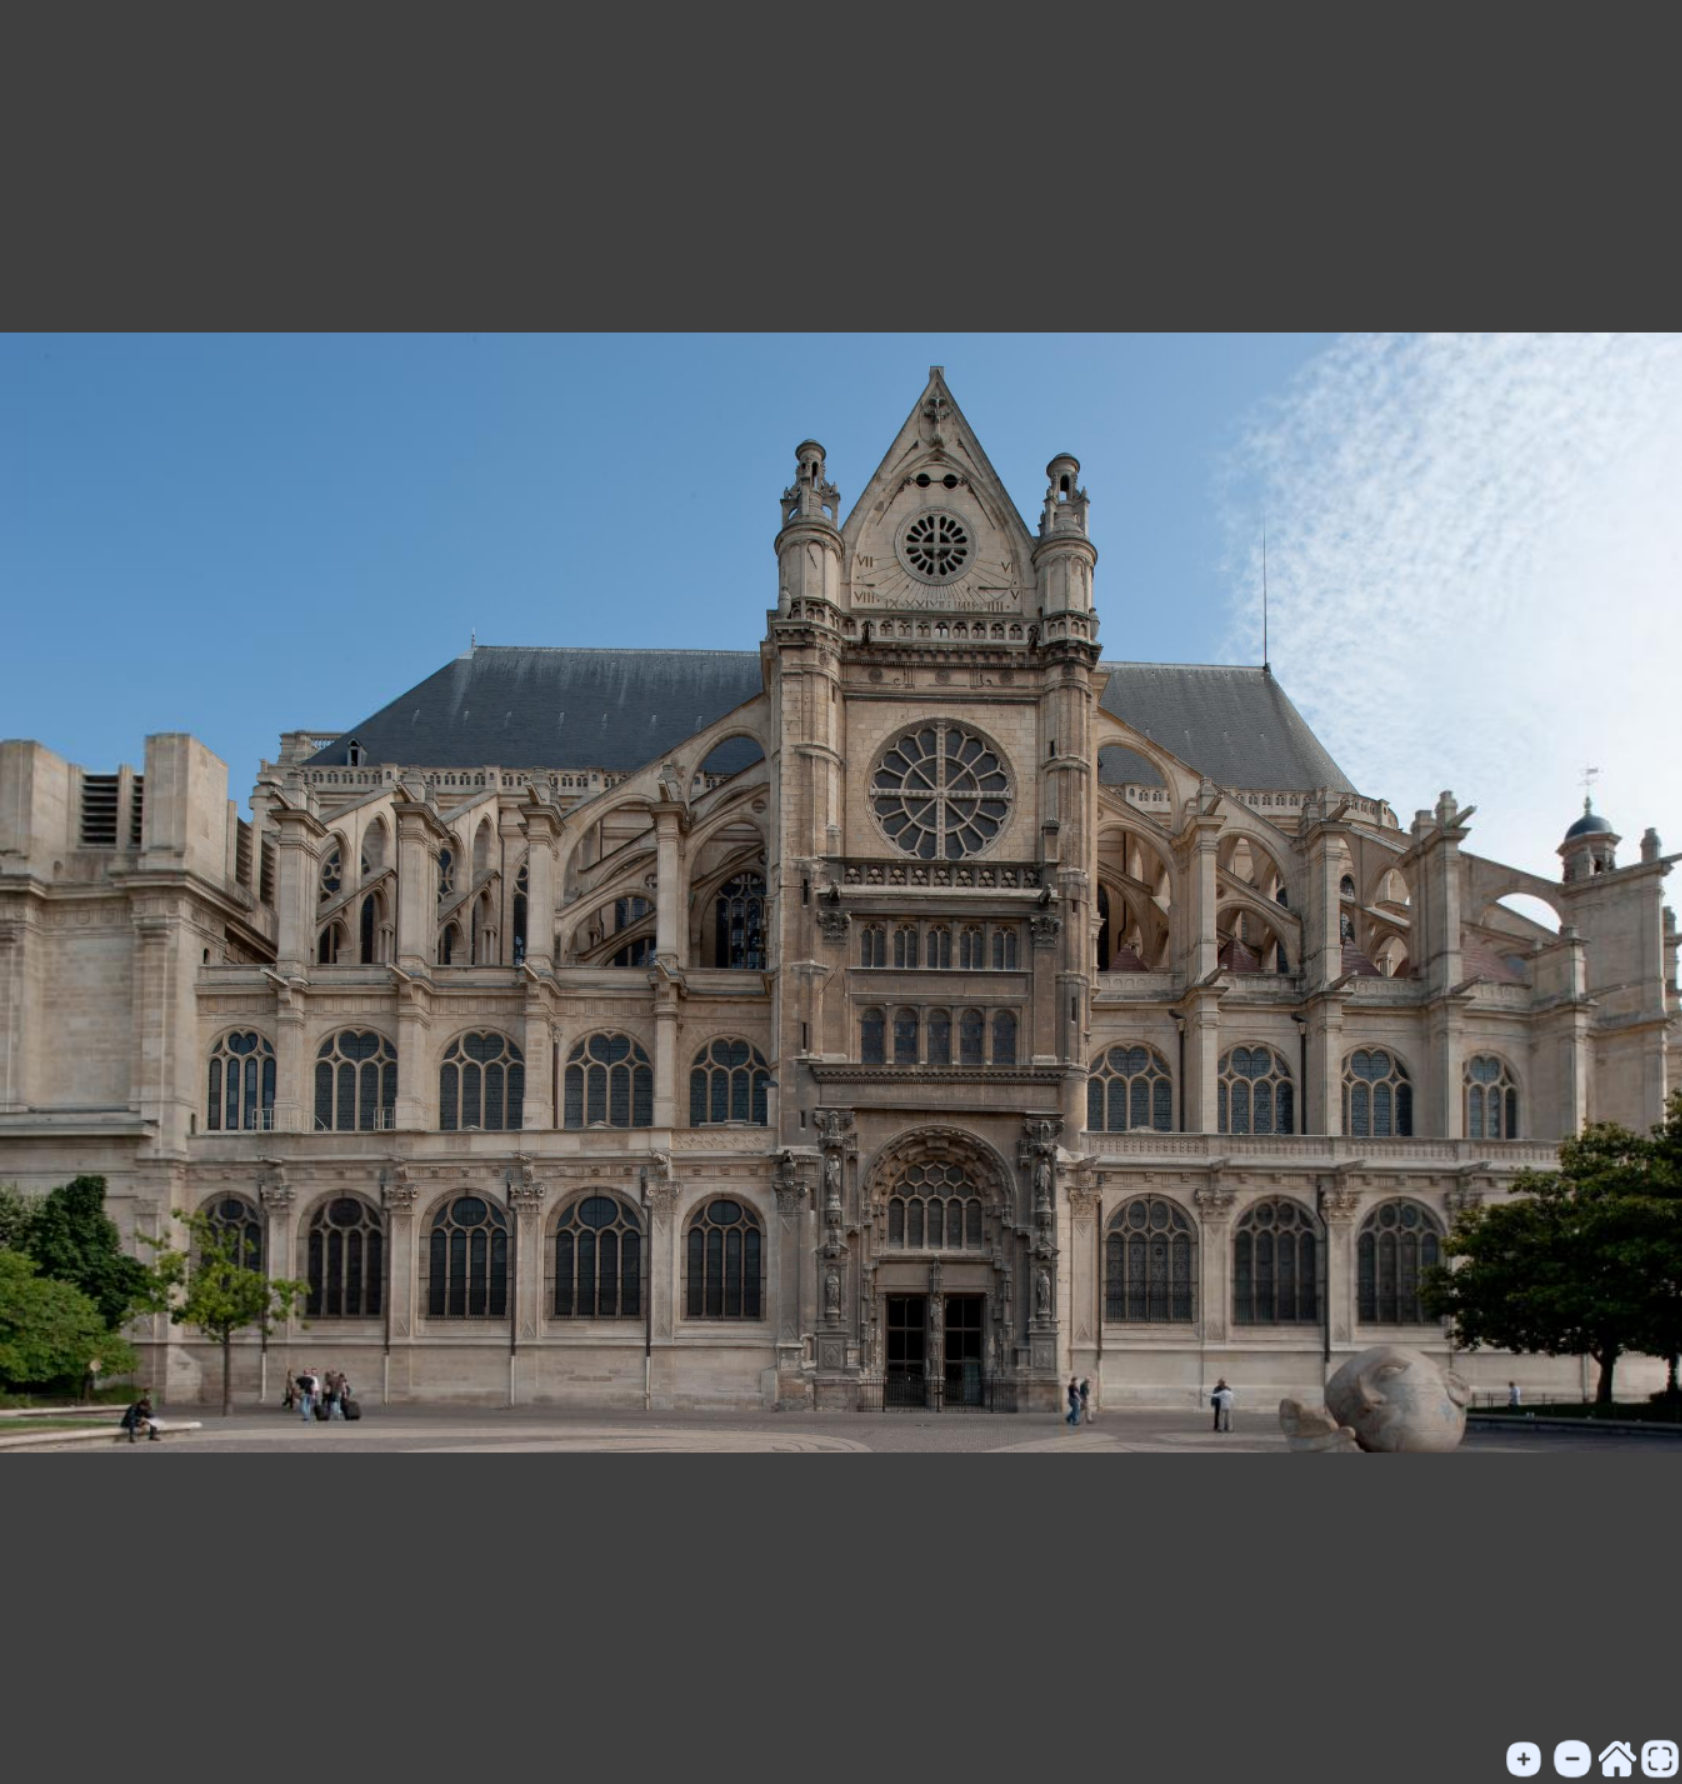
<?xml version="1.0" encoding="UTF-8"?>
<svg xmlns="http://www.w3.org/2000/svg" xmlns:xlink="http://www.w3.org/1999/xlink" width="1682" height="1784">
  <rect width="100%" height="100%" fill="#3f3f3f" />
  <image x="0" y="332" width="1682" height="1121" xlink:href="image1.png" />
  <image x="1506" y="1741" width="36" height="37" xlink:href="image2.png" />
  <image x="1506" y="1741" width="36" height="37" xlink:href="image3.png" />
  <image x="1552" y="1739" width="41" height="40" xlink:href="image4.png" />
  <image x="1553" y="1739" width="39" height="39" xlink:href="image5.png" />
  <image x="1598" y="1740" width="39" height="38" xlink:href="image6.png" />
  <image x="1598" y="1740" width="39" height="38" xlink:href="image7.png" />
  <image x="1640" y="1739" width="40" height="40" xlink:href="image8.png" />
  <image x="1641" y="1739" width="38" height="39" xlink:href="image9.png" />
</svg>
